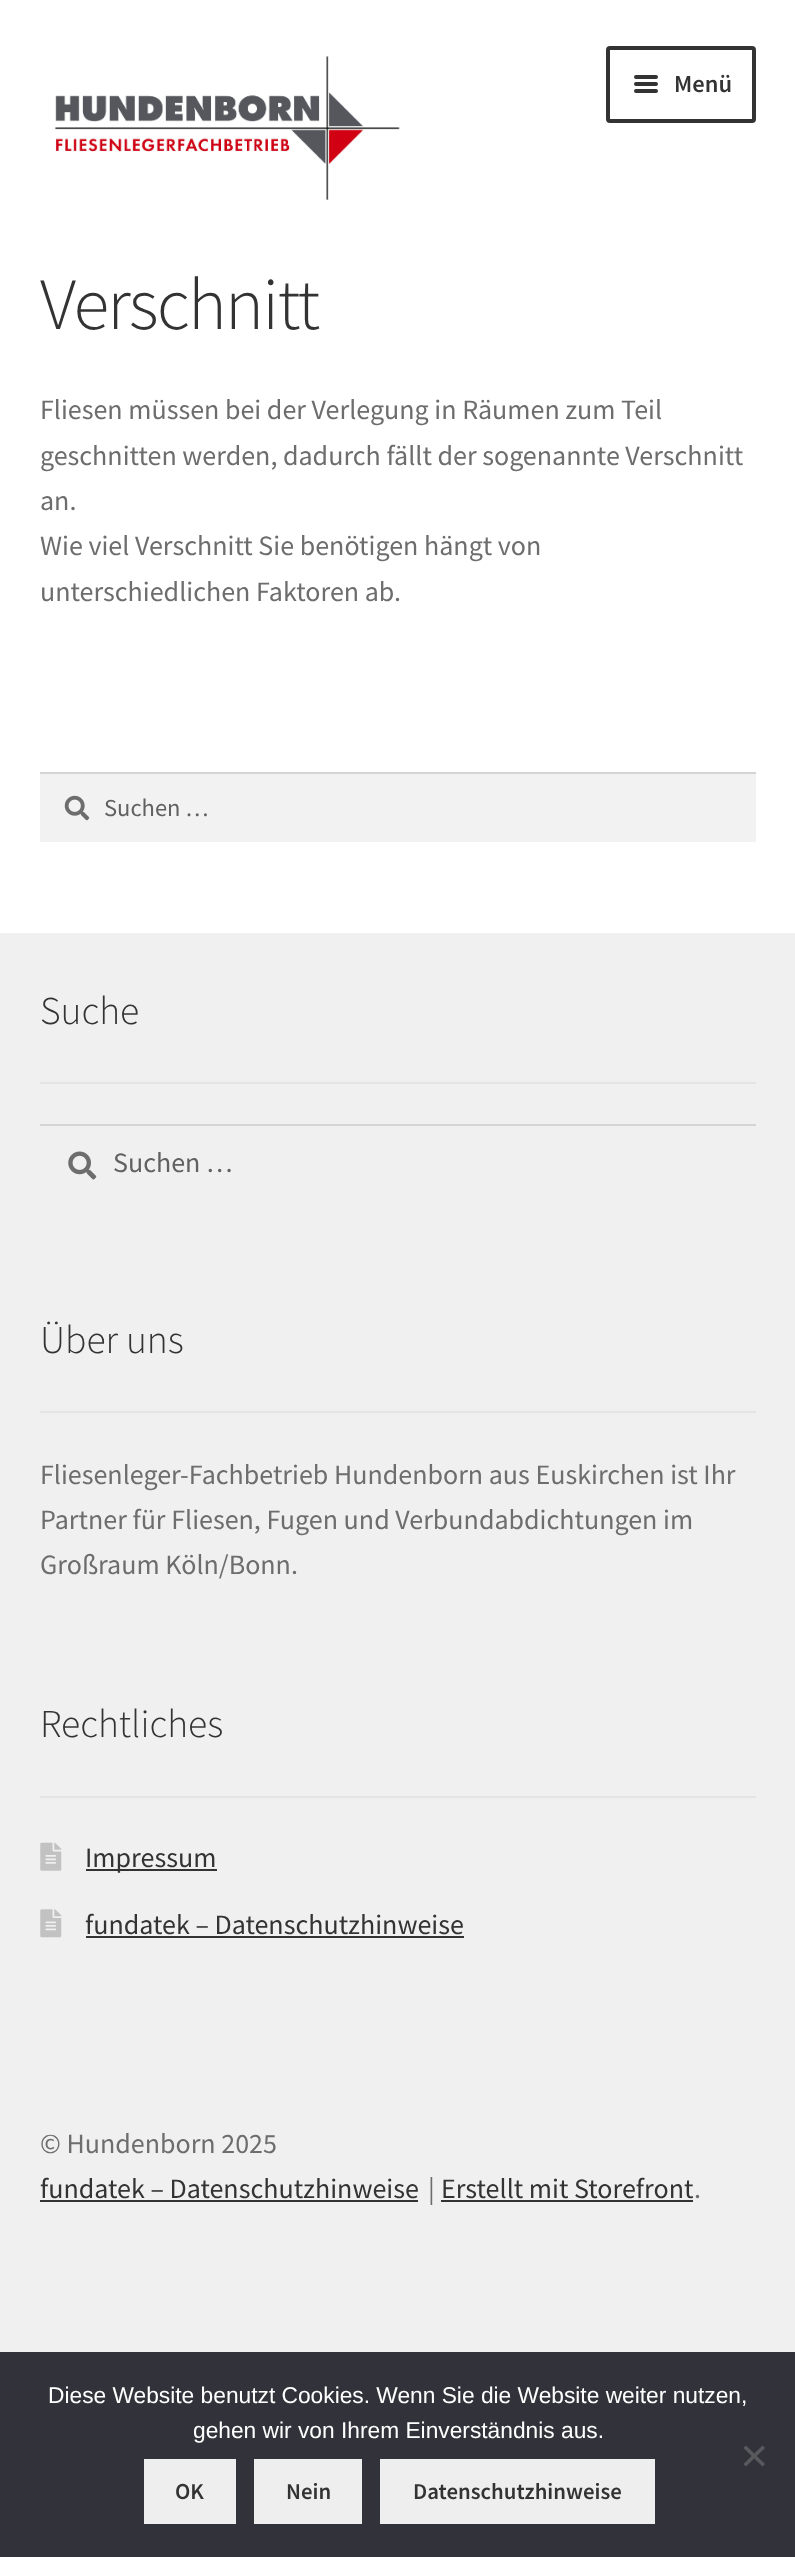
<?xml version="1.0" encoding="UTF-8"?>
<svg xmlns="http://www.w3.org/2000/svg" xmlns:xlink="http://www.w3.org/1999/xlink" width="795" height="2557">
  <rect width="100%" height="100%" fill="#ffffff" />
  <image x="55" y="56" width="345" height="145" xlink:href="image1.png" />
  <rect x="608" y="48" width="146" height="73" rx="2" fill="none" stroke="#333333" stroke-width="4" />
  <rect x="634" y="75" width="24" height="4" rx="2" fill="#333333" />
  <rect x="634" y="82" width="24" height="4" rx="2" fill="#333333" />
  <rect x="634" y="89" width="24" height="4" rx="2" fill="#333333" />
  <rect x="40" y="774" width="716" height="68" fill="#f2f2f2" />
  <image x="64" y="795" width="26" height="26" xlink:href="image2.png" />
  <rect x="40" y="772" width="716" height="2" fill="#d4d4d4" />
  <rect y="933" width="795" height="1419" fill="#f0f0f0" />
  <rect x="40" y="1082" width="716" height="2" fill="#e4e4e4" />
  <image x="68" y="1151" width="29" height="29" xlink:href="image3.png" />
  <rect x="40" y="1124" width="716" height="2" fill="#d4d4d4" />
  <rect x="40" y="1411" width="716" height="2" fill="#e4e4e4" />
  <rect x="40" y="1796" width="716" height="2" fill="#e4e4e4" />
  <image x="40" y="1842" width="22" height="29" xlink:href="image4.png" />
  <rect x="86" y="1869" width="131" height="2" fill="#333333" />
  <image x="40" y="1909" width="22" height="29" xlink:href="image5.png" />
  <rect x="86" y="1936" width="378" height="2" fill="#333333" />
  <rect x="40" y="2200" width="378" height="2" fill="#333333" />
  <rect x="441" y="2200" width="252" height="2" fill="#333333" />
  <rect y="2352" width="795" height="205" fill="#32323a" />
  <path d="M 762.5 2445.5 l 2.5 2.5 l -19 18.5 l -2.5 -2.5 z" fill="#59595d" />
  <path d="M 743.5 2448 l 2.5 -2.5 l 19 18.5 l -2.5 2.5 z" fill="#59595d" />
  <rect x="144" y="2459" width="92" height="65" fill="#eeeeee" />
  <rect x="254" y="2459" width="108" height="65" fill="#eeeeee" />
  <rect x="380" y="2459" width="275" height="65" fill="#eeeeee" />
  <text x="674" y="92" style="font-family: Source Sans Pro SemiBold; font-size: 24.5px; font-weight: 600; fill: #333333">Menü</text>
  <text x="40" y="329" style="font-family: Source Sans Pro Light; font-size: 73.5px; font-weight: 300; letter-spacing: -1.75px; fill: #333333">Verschnitt</text>
  <text x="40" y="419" style="font-family: Source Sans Pro; font-size: 28px; fill: #6d6d6d">Fliesen müssen bei der Verlegung in Räumen zum Teil</text>
  <text x="40" y="465" style="font-family: Source Sans Pro; font-size: 28px; fill: #6d6d6d">geschnitten werden, dadurch fällt der sogenannte Verschnitt</text>
  <text x="40" y="510" style="font-family: Source Sans Pro; font-size: 28px; fill: #6d6d6d">an.</text>
  <text x="40" y="555" style="font-family: Source Sans Pro; font-size: 28px; fill: #6d6d6d">Wie viel Verschnitt Sie benötigen hängt von</text>
  <text x="40" y="601" style="font-family: Source Sans Pro; font-size: 28px; fill: #6d6d6d">unterschiedlichen Faktoren ab.</text>
  <text x="104" y="816" style="font-family: Source Sans Pro; font-size: 24.5px; fill: #616161">Suchen …</text>
  <text x="40" y="1024" style="font-family: Source Sans Pro Light; font-size: 39.5px; font-weight: 300; fill: #333333">Suche</text>
  <text x="113" y="1172" style="font-family: Source Sans Pro; font-size: 28px; fill: #616161">Suchen …</text>
  <text x="40" y="1353" style="font-family: Source Sans Pro Light; font-size: 39.5px; font-weight: 300; fill: #333333">Über uns</text>
  <text x="40" y="1484" style="font-family: Source Sans Pro; font-size: 28px; fill: #6d6d6d">Fliesenleger-Fachbetrieb Hundenborn aus Euskirchen ist Ihr</text>
  <text x="40" y="1529" style="font-family: Source Sans Pro; font-size: 28px; fill: #6d6d6d">Partner für Fliesen, Fugen und Verbundabdichtungen im</text>
  <text x="40" y="1574" style="font-family: Source Sans Pro; font-size: 28px; fill: #6d6d6d">Großraum Köln/Bonn.</text>
  <text x="40" y="1737" style="font-family: Source Sans Pro Light; font-size: 39.5px; font-weight: 300; fill: #333333">Rechtliches</text>
  <text x="85" y="1867" style="font-family: Source Sans Pro; font-size: 28px; fill: #333333">Impressum</text>
  <text x="85" y="1934" style="font-family: Source Sans Pro; font-size: 28px; fill: #333333">fundatek – Datenschutzhinweise</text>
  <text x="40" y="2153" style="font-family: Source Sans Pro; font-size: 28px; fill: #6d6d6d">© Hundenborn 2025</text>
  <text x="40" y="2198" style="font-family: Source Sans Pro; font-size: 28px; fill: #333333">fundatek – Datenschutzhinweise</text>
  <text x="428" y="2198" style="font-family: Source Sans Pro; font-size: 28px; fill: #6d6d6d">|</text>
  <text x="441" y="2198" style="font-family: Source Sans Pro; font-size: 28px; fill: #333333">Erstellt mit Storefront</text>
  <text x="694" y="2198" style="font-family: Source Sans Pro; font-size: 28px; fill: #6d6d6d">.</text>
  <text x="48" y="2403" style="font-family: Liberation Sans; font-size: 22.75px; fill: #ffffff">Diese Website benutzt Cookies. Wenn Sie die Website weiter nutzen,</text>
  <text x="193" y="2438" style="font-family: Liberation Sans; font-size: 22.75px; fill: #ffffff">gehen wir von Ihrem Einverständnis aus.</text>
  <text x="175" y="2499" style="font-family: Source Sans Pro SemiBold; font-size: 22.75px; font-weight: 600; fill: #333333">OK</text>
  <text x="286" y="2499" style="font-family: Source Sans Pro SemiBold; font-size: 22.75px; font-weight: 600; fill: #333333">Nein</text>
  <text x="413" y="2499" style="font-family: Source Sans Pro SemiBold; font-size: 22.75px; font-weight: 600; fill: #333333">Datenschutzhinweise</text>
</svg>
